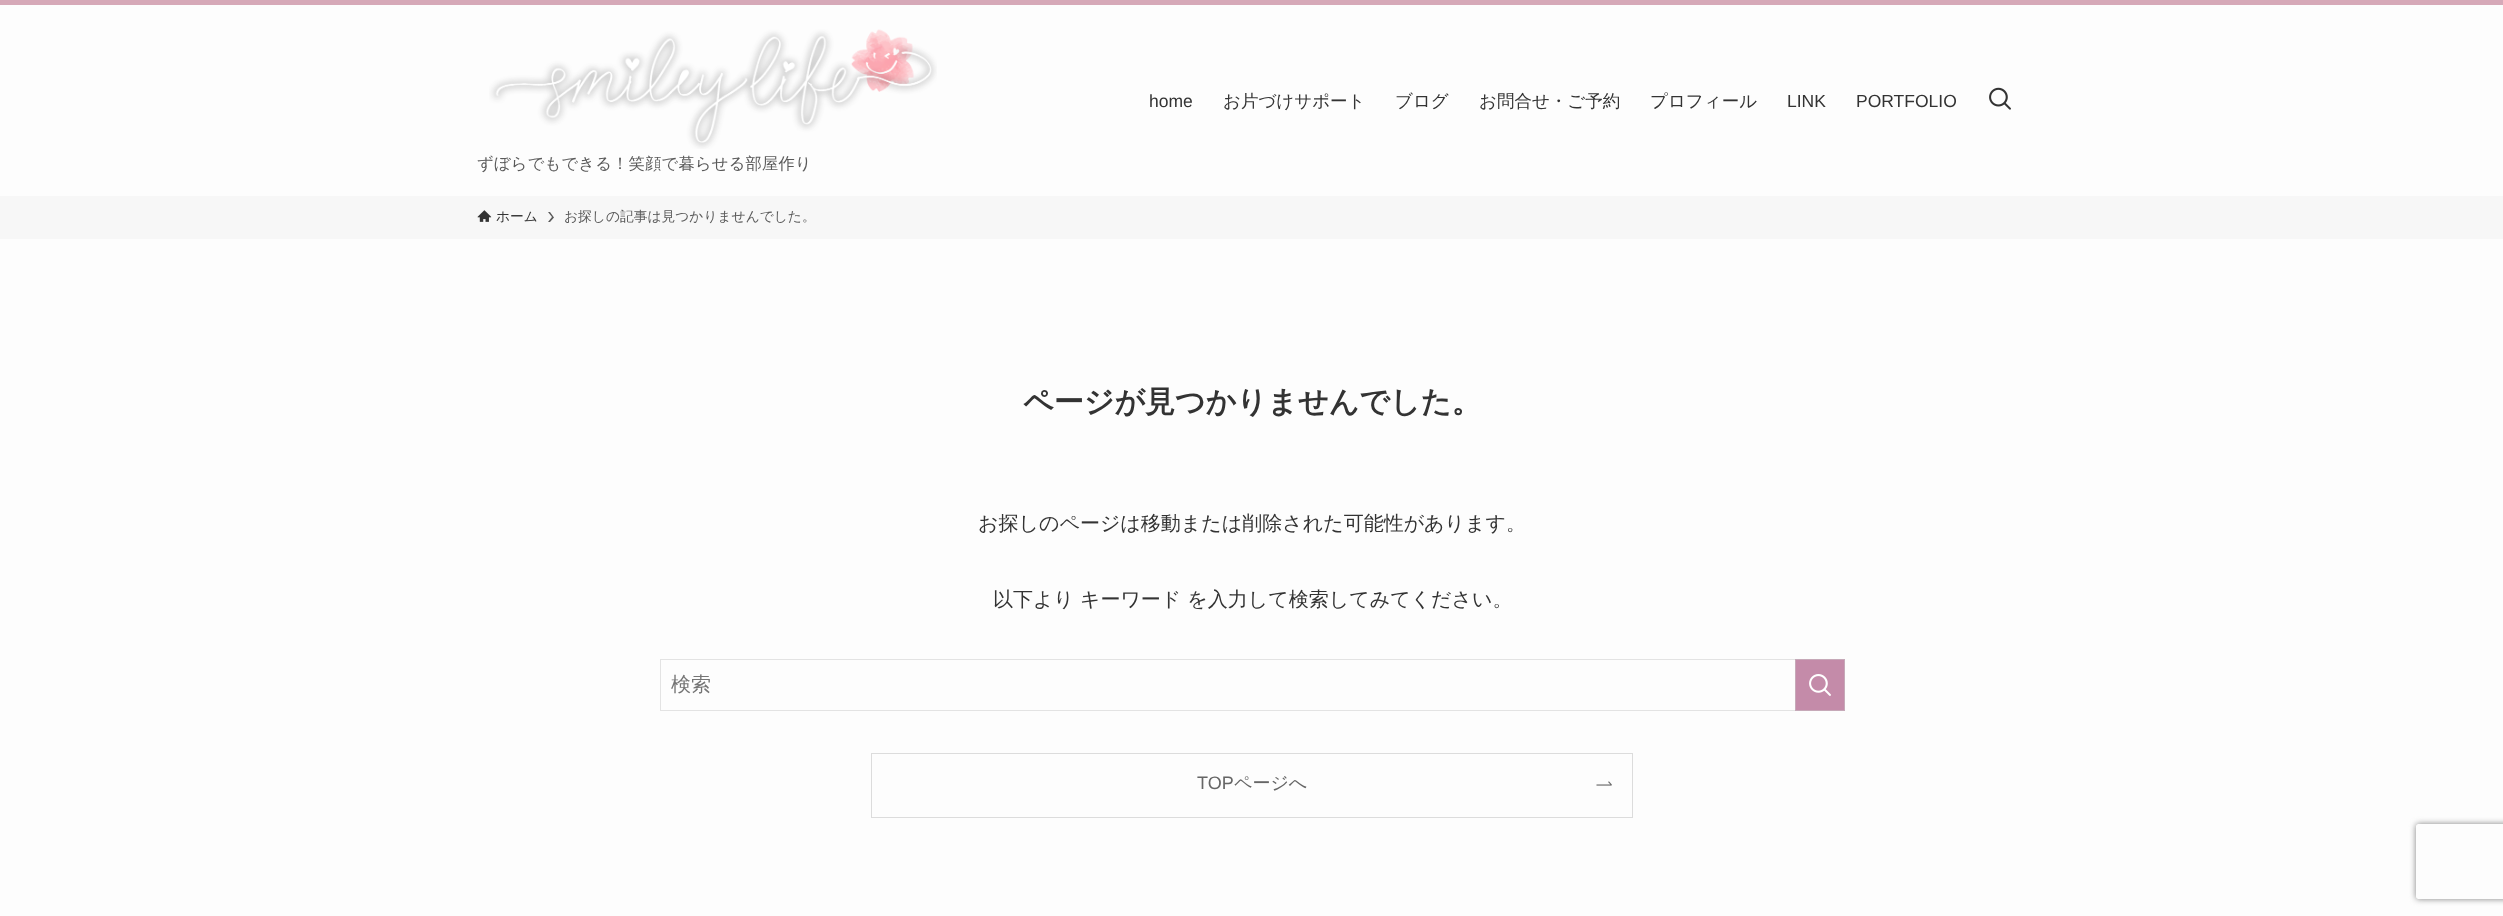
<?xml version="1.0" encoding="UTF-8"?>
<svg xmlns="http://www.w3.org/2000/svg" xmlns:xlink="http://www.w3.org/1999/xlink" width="2503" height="916">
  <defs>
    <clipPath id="clip1"><path d="M 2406 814 h 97 v 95 h -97 z m 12.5 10 h 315 c 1.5 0 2.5 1 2.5 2.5 v 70 c 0 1.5 -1 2.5 -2.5 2.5 h -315 c -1.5 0 -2.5 -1 -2.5 -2.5 v -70 c 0 -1.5 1 -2.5 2.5 -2.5 z" clip-rule="evenodd" /></clipPath>
  </defs>
  <rect width="100%" height="100%" fill="#fdfdfd" />
  <rect width="2503" height="5" fill="#d6a9b8" />
  <image x="1989" y="87" width="22" height="23" xlink:href="image1.png" />
  <image x="489" y="29" width="448" height="120" xlink:href="image2.png" />
  <rect y="196" width="2503" height="43" fill="#f7f7f7" />
  <image x="477" y="210" width="15" height="12" xlink:href="image3.png" />
  <path d="M 550 212 h -2 l 4 5 l -4 5 h 2 l 4 -4.5 z" fill="#5a5a5a" />
  <rect x="660.5" y="659.5" width="1184" height="51" fill="none" stroke="#e3e3e3" />
  <rect x="1795.5" y="659.5" width="49" height="51" fill="#c48ba9" stroke="#c6a9b8" />
  <image x="1809" y="674" width="22" height="22" xlink:href="image4.png" />
  <rect x="871.5" y="753.5" width="761" height="64" fill="none" stroke="#dcdcdc" />
  <image x="1596" y="781" width="16" height="5" xlink:href="image5.png" />
  <g clip-path="url(#clip1)">
    <rect x="2416" y="824" width="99" height="75" rx="2.5" fill="#808080" filter="blur(3px)" />
  </g>
  <text x="1149" y="107" style="font-family: Liberation Sans; font-size: 17.5px; fill: #333333">home</text>
  <text x="1223" y="107" style="font-family: WenQuanYi Zen Hei; font-size: 17.5px; font-weight: 500; fill: #333333">お片づけサポート</text>
  <text x="1395" y="107" style="font-family: WenQuanYi Zen Hei; font-size: 17.5px; font-weight: 500; fill: #333333">ブログ</text>
  <text x="1479" y="107" style="font-family: WenQuanYi Zen Hei; font-size: 17.5px; font-weight: 500; fill: #333333">お問合せ・ご予約</text>
  <text x="1650" y="107" style="font-family: WenQuanYi Zen Hei; font-size: 17.5px; font-weight: 500; fill: #333333">プロフィール</text>
  <text x="1787" y="107" style="font-family: Liberation Sans; font-size: 17.5px; fill: #333333">LINK</text>
  <text x="1856" y="107" style="font-family: Liberation Sans; font-size: 17.5px; fill: #333333">PORTFOLIO</text>
  <text x="477" y="169" style="font-family: WenQuanYi Zen Hei; font-size: 16.25px; font-weight: 500; letter-spacing: 0.25px; fill: #5a5a5a">ずぼらでもできる！笑顔で暮らせる部屋作り</text>
  <text x="496" y="221" style="font-family: WenQuanYi Zen Hei; font-size: 13.75px; font-weight: 500; fill: #333333">ホーム</text>
  <text x="564" y="221" style="font-family: WenQuanYi Zen Hei; font-size: 13.75px; font-weight: 500; fill: #5a5a5a">お探しの記事は見つかりませんでした。</text>
  <text x="1023" y="412" style="font-family: WenQuanYi Zen Hei; font-size: 30px; font-weight: bold; fill: #333333">ページが見つかりませんでした。</text>
  <text x="978" y="530" style="font-family: WenQuanYi Zen Hei; font-size: 20px; font-weight: 500; fill: #333333">お探しのページは移動または削除された可能性があります。</text>
  <text x="993" y="606" style="font-family: WenQuanYi Zen Hei; font-size: 20px; font-weight: 500; fill: #333333">以下より キーワード を入力して検索してみてください。</text>
  <text x="671" y="691" style="font-family: WenQuanYi Zen Hei; font-size: 20px; font-weight: 500; fill: #757575">検索</text>
  <text x="1197" y="789" style="font-family: Liberation Sans; font-size: 18px; fill: #666666">TOP</text>
  <text x="1234" y="789" style="font-family: WenQuanYi Zen Hei; font-size: 18px; font-weight: 500; fill: #666666">ページへ</text>
</svg>
